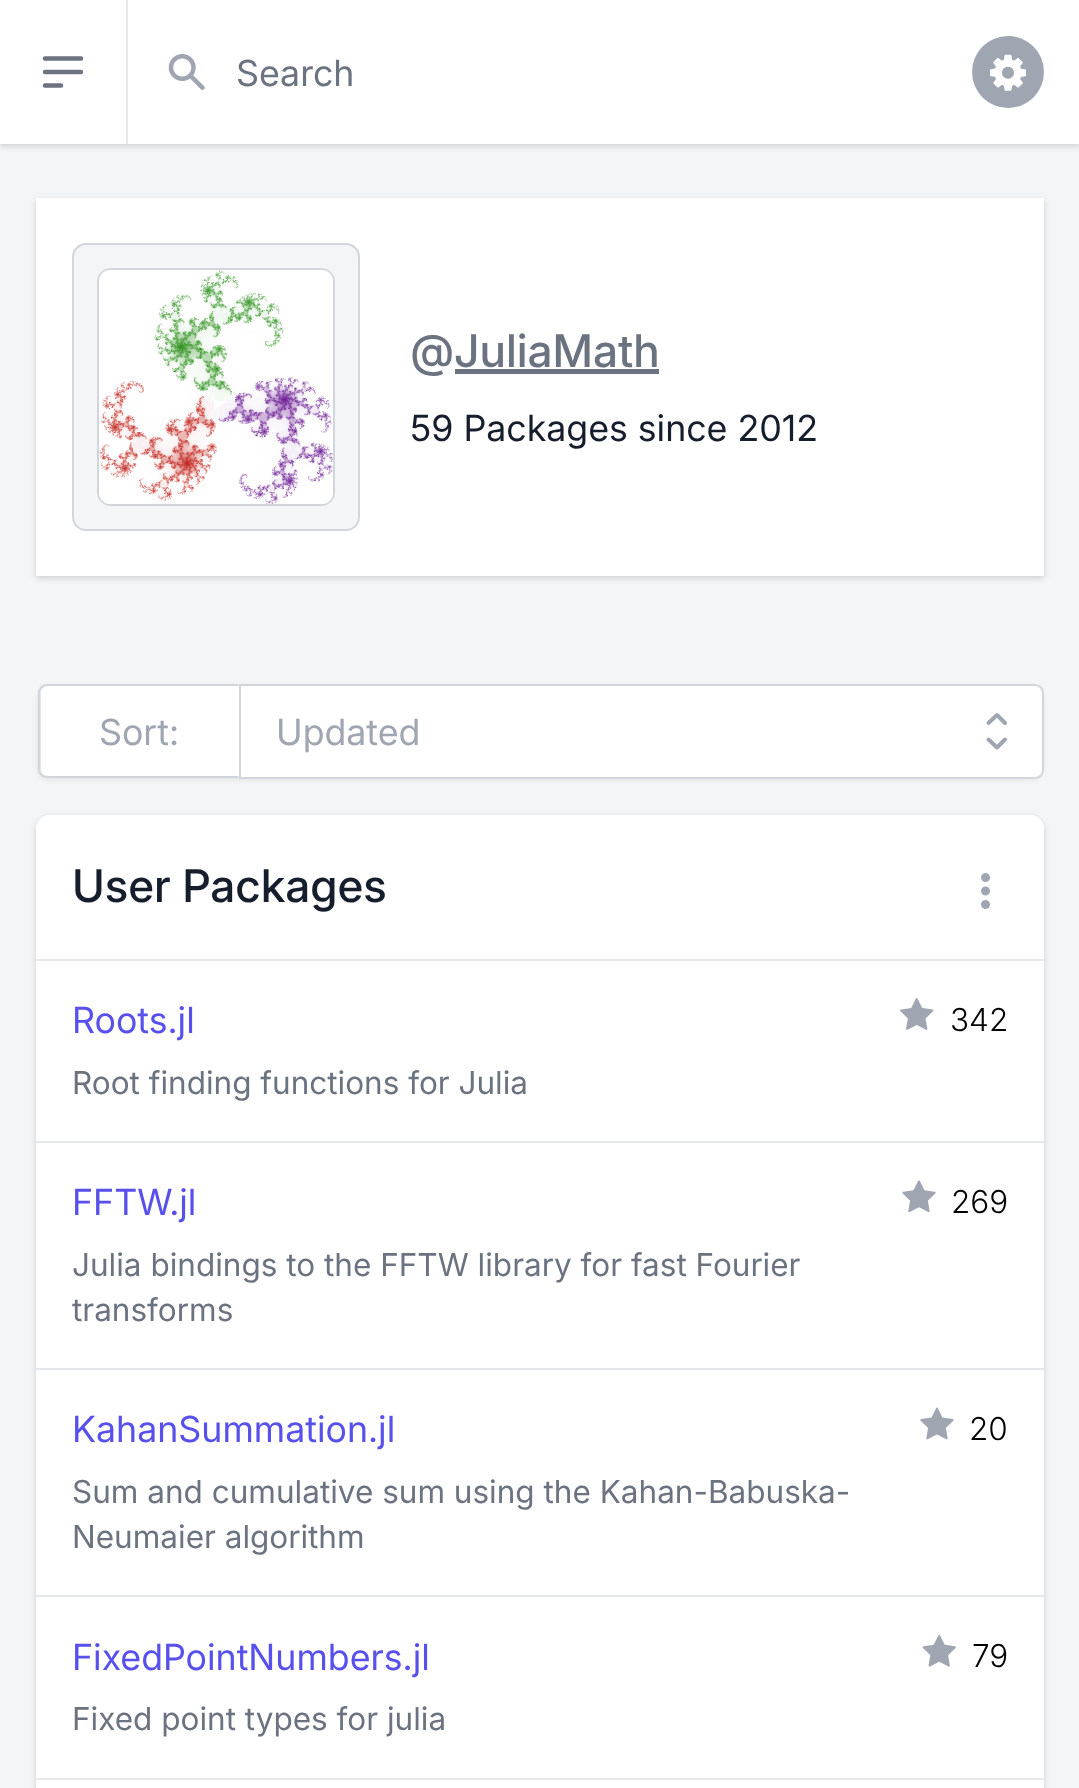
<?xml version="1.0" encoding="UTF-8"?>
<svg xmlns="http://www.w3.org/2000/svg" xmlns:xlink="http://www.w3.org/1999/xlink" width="1079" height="1788">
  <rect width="100%" height="100%" fill="#f4f5f7" />
  <rect y="2" width="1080" height="144" fill="#000000" fill-opacity="0.06" filter="blur(2px)" />
  <rect y="2" width="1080" height="144" fill="#000000" fill-opacity="0.1" filter="blur(3.5px)" />
  <rect width="1079" height="144" fill="#ffffff" />
  <rect x="126" width="2" height="144" fill="#e5e7eb" />
  <path d="M 45 58.5 h 36 m -36 13.5 h 36 m -36 13.5 h 16" fill="none" stroke="#6b7280" stroke-width="4.5" stroke-linecap="round" stroke-linejoin="round" />
  <image x="168" y="54" width="37" height="36" xlink:href="image1.png" />
  <circle cx="1008" cy="72" r="36" fill="#9fa6b2" />
  <image x="990" y="54" width="36" height="37" xlink:href="image2.png" />
  <rect x="36" y="200" width="1008" height="378" fill="#000000" fill-opacity="0.06" filter="blur(2px)" />
  <rect x="36" y="200" width="1008" height="378" fill="#000000" fill-opacity="0.1" filter="blur(3.5px)" />
  <rect x="36" y="198" width="1008" height="378" fill="#ffffff" />
  <rect x="73" y="244" width="286" height="286" rx="13" fill="#f4f5f7" stroke="#d2d6dc" stroke-width="2" />
  <rect x="98" y="269" width="236" height="236" rx="13" fill="none" stroke="#d2d6dc" stroke-width="2" />
  <image x="99" y="270" width="234" height="234" xlink:href="image3.png" />
  <rect x="455" y="369" width="204" height="5" fill="#6b7280" />
  <rect x="36" y="686" width="1008" height="95" rx="14" fill="#000000" fill-opacity="0.05" filter="blur(2px)" />
  <path d="M 48 686 h 191 v 90 h -191 c -4 0 -7 -3 -7 -7 v -76 c 0 -4 3 -7 7 -7 z" fill="#ffffff" />
  <path d="M 47 684 h 191 v 94 h -191 c -5 0 -9 -4 -9 -8 v -77 c 0 -5 4 -9 9 -9 z m 0 2 h 191 v 90 h -191 c -3 0 -7 -3 -7 -6 v -77 c 0 -4 4 -7 7 -7 z" fill="#d2d6dc" fill-rule="evenodd" />
  <path d="M 239 684 h 796 c 5 0 9 4 9 9 v 77 c 0 5 -4 9 -9 9 h -796 z" fill="#ffffff" />
  <path d="M 988.5 723 l 8.5 -8 l 8 8 m 0 16.5 l -8 8 l -8.5 -8" fill="none" stroke="#9fa6b2" stroke-width="4" stroke-linecap="round" stroke-linejoin="round" />
  <path d="M 240 685 h 795 c 4.5 0 8 3.5 8 8 v 77 c 0 4.5 -3.5 8 -8 8 h -795 z" fill="none" stroke="#d2d6dc" stroke-width="2" />
  <rect x="36" y="817" width="1008" height="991" rx="14" fill="#000000" fill-opacity="0.06" filter="blur(2px)" />
  <rect x="36" y="817" width="1008" height="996" rx="14" fill="#000000" fill-opacity="0.1" filter="blur(3.5px)" />
  <path d="M 50 815 h 980 c 7.5 0 14 6.5 14 14 v 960 h -1008 v -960 c 0 -7.5 6.5 -14 14 -14 z" fill="#ffffff" />
  <path d="M 50 815 h 980 c 7.5 0 14 6.5 14 14 v 130 h -1008 v -130 c 0 -7.5 6.5 -14 14 -14 z" fill="#ffffff" />
  <image x="981" y="873" width="9" height="36" xlink:href="image4.png" />
  <rect x="36" y="959" width="1008" height="2" fill="#e5e7eb" />
  <image x="900" y="998" width="34" height="32" xlink:href="image5.png" />
  <rect x="36" y="1141" width="1008" height="2" fill="#e5e7eb" />
  <image x="902" y="1180" width="34" height="33" xlink:href="image6.png" />
  <rect x="36" y="1368" width="1008" height="2" fill="#e5e7eb" />
  <image x="920" y="1407" width="34" height="33" xlink:href="image7.png" />
  <rect x="36" y="1595" width="1008" height="2" fill="#e5e7eb" />
  <image x="922" y="1634" width="34" height="33" xlink:href="image8.png" />
  <rect x="36" y="1778" width="1008" height="2" fill="#e5e7eb" />
  <text x="236" y="86" style="font-family: Inter; font-size: 36px; fill: #6b7280">Search</text>
  <text x="410" y="367" style="font-family: Inter; font-size: 45px; font-weight: 500; fill: #6b7280">@</text>
  <text x="454" y="367" style="font-family: 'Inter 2'; font-size: 45px; font-weight: 500; fill: #6b7280">JuliaMath</text>
  <text x="410" y="441" style="font-family: Inter; font-size: 36px; fill: #161e2e">59 Packages since 2012</text>
  <text x="99" y="745" style="font-family: Inter; font-size: 36px; fill: #9fa6b2">Sort:</text>
  <text x="276" y="745" style="font-family: Inter; font-size: 36px; fill: #9fa6b2">Updated</text>
  <text x="72" y="902" style="font-family: 'Inter 2'; font-size: 45px; font-weight: 500; fill: #161e2e">User Packages</text>
  <text x="72" y="1033" style="font-family: Inter; font-size: 36px; fill: #5850ec">Roots.jl</text>
  <text x="950" y="1031" style="font-family: Inter; font-size: 31.5px; font-weight: 300; fill: #000000">342</text>
  <text x="72" y="1094" style="font-family: 'Inter 2'; font-size: 31.5px; fill: #6b7280">Root finding functions for Julia</text>
  <text x="72" y="1215" style="font-family: Inter; font-size: 36px; fill: #5850ec">FFTW.jl</text>
  <text x="951" y="1213" style="font-family: Inter; font-size: 31.5px; font-weight: 300; fill: #000000">269</text>
  <text x="72" y="1276" style="font-family: 'Inter 2'; font-size: 31.5px; fill: #6b7280">Julia bindings to the FFTW library for fast Fourier</text>
  <text x="72" y="1321" style="font-family: 'Inter 2'; font-size: 31.5px; fill: #6b7280">transforms</text>
  <text x="72" y="1442" style="font-family: Inter; font-size: 36px; fill: #5850ec">KahanSummation.jl</text>
  <text x="969" y="1440" style="font-family: Inter; font-size: 31.5px; font-weight: 300; fill: #000000">20</text>
  <text x="72" y="1503" style="font-family: 'Inter 2'; font-size: 31.5px; fill: #6b7280">Sum and cumulative sum using the Kahan-Babuska-</text>
  <text x="72" y="1548" style="font-family: 'Inter 2'; font-size: 31.5px; fill: #6b7280">Neumaier algorithm</text>
  <text x="72" y="1670" style="font-family: Inter; font-size: 36px; fill: #5850ec">FixedPointNumbers.jl</text>
  <text x="972" y="1667" style="font-family: Inter; font-size: 31.5px; font-weight: 300; fill: #000000">79</text>
  <text x="72" y="1730" style="font-family: 'Inter 2'; font-size: 31.5px; fill: #6b7280">Fixed point types for julia</text>
</svg>
